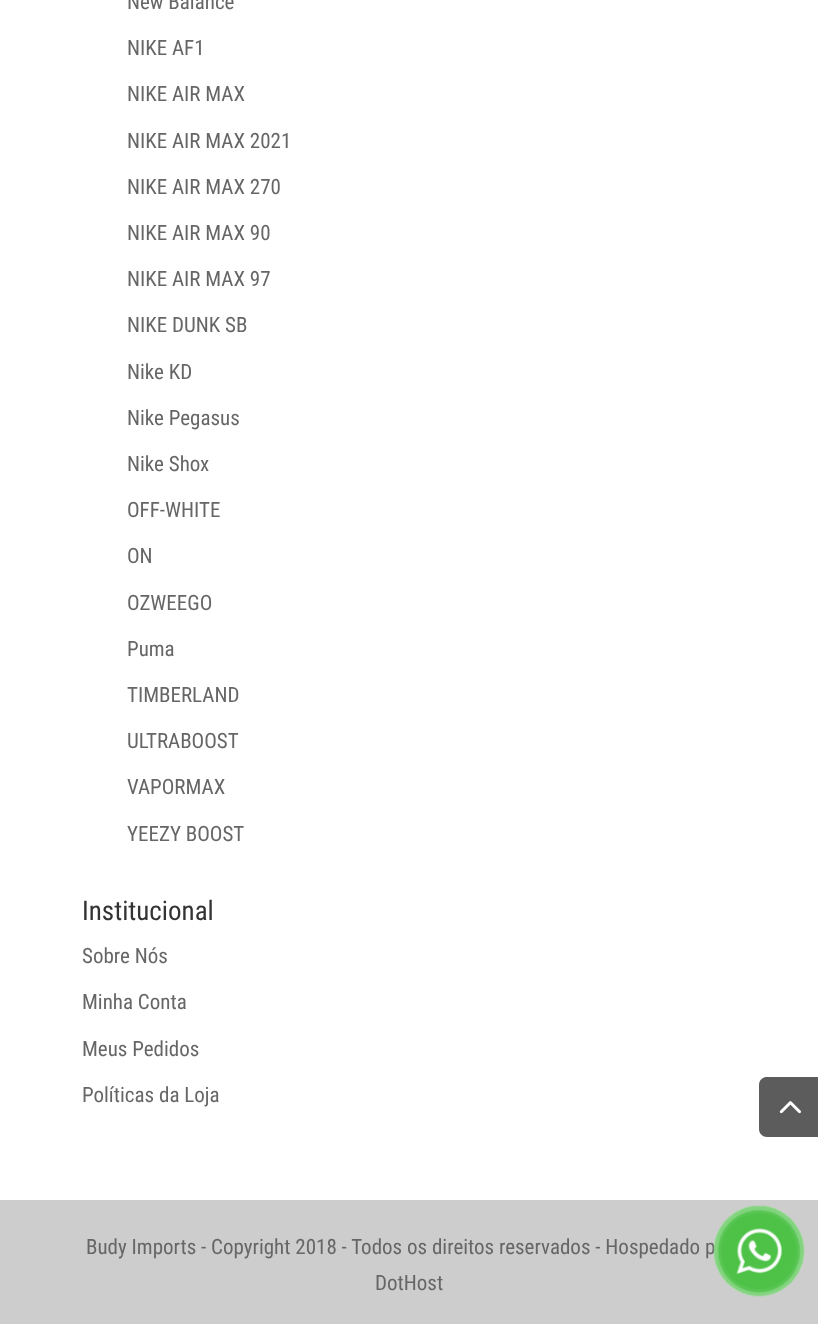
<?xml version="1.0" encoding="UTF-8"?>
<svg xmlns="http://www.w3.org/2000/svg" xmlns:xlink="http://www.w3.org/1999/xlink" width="818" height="1324">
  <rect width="100%" height="100%" fill="#ffffff" />
  <path d="M 767 1077 h 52 v 60 h -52 c -4.5 0 -8 -3.5 -8 -8 v -44 c 0 -4.5 3.5 -8 8 -8 z" fill="#999999" />
  <image x="779" y="1101" width="22" height="13" xlink:href="image1.png" />
  <rect y="1200" width="818" height="124" fill="#cdcdcd" />
  <path d="M 767 1077 h 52 v 60 h -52 c -4.5 0 -8 -3.5 -8 -8 v -44 c 0 -4.5 3.5 -8 8 -8 z" fill="#000000" fill-opacity="0.4" />
  <image x="779" y="1101" width="22" height="13" xlink:href="image2.png" />
  <text x="127" y="9" style="font-family: Roboto Condensed; font-size: 21px; fill: #666666">New Balance</text>
  <text x="127" y="55" style="font-family: Roboto Condensed; font-size: 21px; fill: #666666">NIKE AF1</text>
  <text x="127" y="101" style="font-family: Roboto Condensed; font-size: 21px; fill: #666666">NIKE AIR MAX</text>
  <text x="127" y="148" style="font-family: Roboto Condensed; font-size: 21px; fill: #666666">NIKE AIR MAX 2021</text>
  <text x="127" y="194" style="font-family: Roboto Condensed; font-size: 21px; fill: #666666">NIKE AIR MAX 270</text>
  <text x="127" y="240" style="font-family: Roboto Condensed; font-size: 21px; fill: #666666">NIKE AIR MAX 90</text>
  <text x="127" y="286" style="font-family: Roboto Condensed; font-size: 21px; fill: #666666">NIKE AIR MAX 97</text>
  <text x="127" y="332" style="font-family: Roboto Condensed; font-size: 21px; fill: #666666">NIKE DUNK SB</text>
  <text x="127" y="379" style="font-family: Roboto Condensed; font-size: 21px; fill: #666666">Nike KD</text>
  <text x="127" y="425" style="font-family: Roboto Condensed; font-size: 21px; fill: #666666">Nike Pegasus</text>
  <text x="127" y="471" style="font-family: Roboto Condensed; font-size: 21px; fill: #666666">Nike Shox</text>
  <text x="127" y="517" style="font-family: Roboto Condensed; font-size: 21px; fill: #666666">OFF-WHITE</text>
  <text x="127" y="563" style="font-family: Roboto Condensed; font-size: 21px; fill: #666666">ON</text>
  <text x="127" y="610" style="font-family: Roboto Condensed; font-size: 21px; fill: #666666">OZWEEGO</text>
  <text x="127" y="656" style="font-family: Roboto Condensed; font-size: 21px; fill: #666666">Puma</text>
  <text x="127" y="702" style="font-family: Roboto Condensed; font-size: 21px; fill: #666666">TIMBERLAND</text>
  <text x="127" y="748" style="font-family: Roboto Condensed; font-size: 21px; fill: #666666">ULTRABOOST</text>
  <text x="127" y="794" style="font-family: Roboto Condensed; font-size: 21px; fill: #666666">VAPORMAX</text>
  <text x="127" y="841" style="font-family: Roboto Condensed; font-size: 21px; fill: #666666">YEEZY BOOST</text>
  <text x="82" y="920" style="font-family: Roboto Condensed; font-size: 27px; fill: #333333">Institucional</text>
  <text x="82" y="963" style="font-family: Roboto Condensed; font-size: 21px; fill: #666666">Sobre Nós</text>
  <text x="82" y="1009" style="font-family: Roboto Condensed; font-size: 21px; fill: #666666">Minha Conta</text>
  <text x="82" y="1056" style="font-family: Roboto Condensed; font-size: 21px; fill: #666666">Meus Pedidos</text>
  <text x="82" y="1102" style="font-family: Roboto Condensed; font-size: 21px; fill: #666666">Políticas da Loja</text>
  <text x="86" y="1254" style="font-family: Roboto Condensed; font-size: 21px; fill: #666666">Budy Imports - Copyright 2018 - Todos os direitos reservados - Hospedado p</text>
  <text x="375" y="1290" style="font-family: Roboto Condensed; font-size: 21px; fill: #666666">DotHost</text>
  <image x="713" y="1205" width="92" height="92" xlink:href="image3.png" />
</svg>
